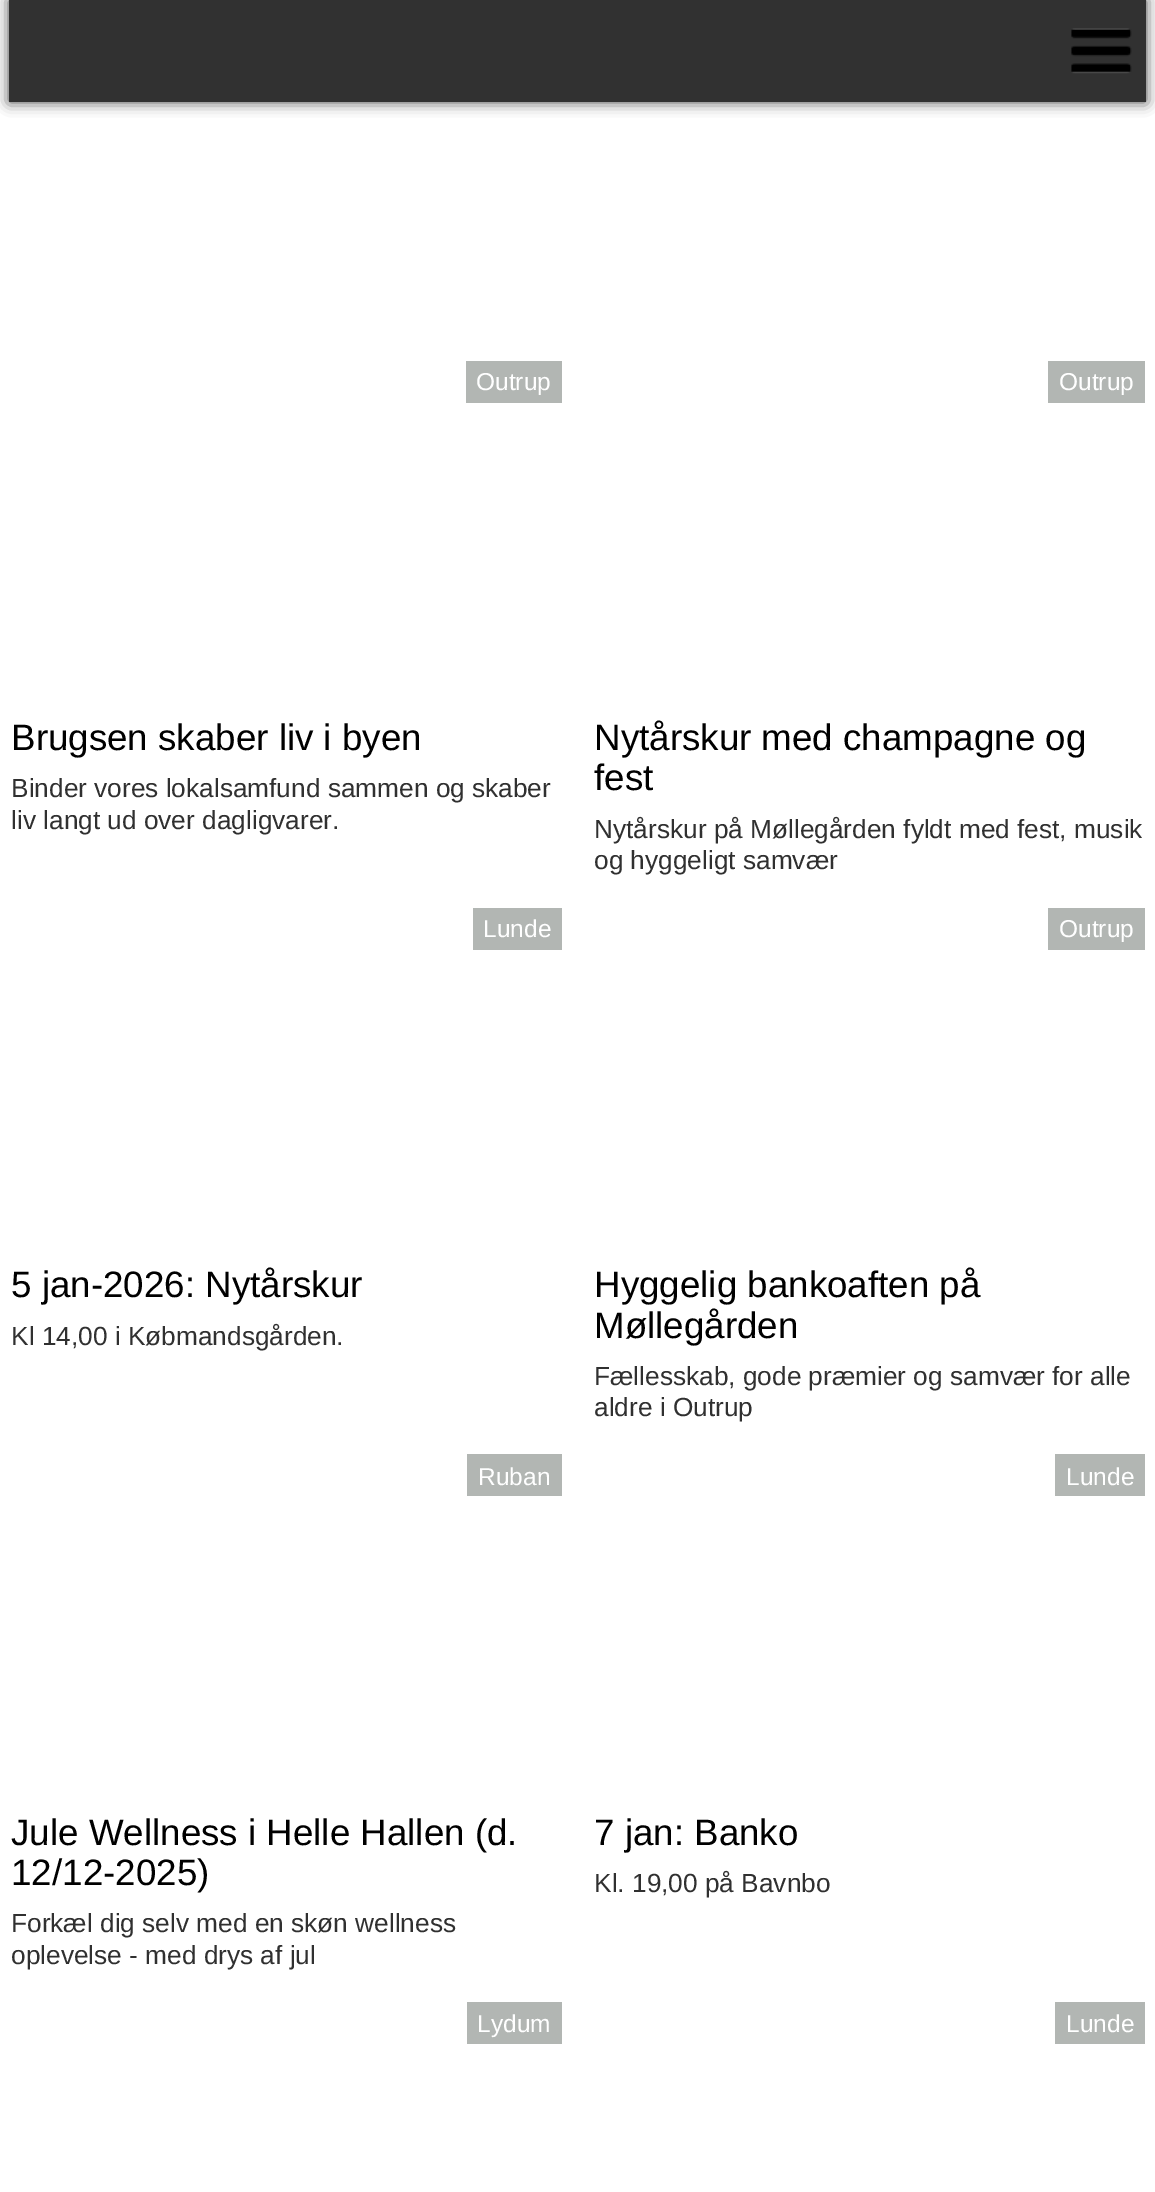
%!PS-Adobe-3.0
%%BoundingBox: 0 0 1155 2192
%%LanguageLevel: 3
%%Pages: 1
%%EndComments
%%BeginProlog
/setink { 3 { 255 div 3 1 roll } repeat setrgbcolor } def
/usefont { [ exch dup neg 0 0 3 -1 roll 0 0 ] selectfont } def
/drawtext { setink usefont moveto show } def
/fillbox { setink rectfill } def
/setalpha { dup .setfillconstantalpha .setstrokeconstantalpha } def
/rrect { 5 dict begin { /r /h /w /y /x } { exch def } forall
  x r add y moveto x w add y 2 copy h add r arct x w add y h add x 1 index r arct
  x y h add x y r arct x y 2 copy exch w add exch r arct closepath end } def
/softshadow { 12 dict begin { /a /b /q /h /w /y /x } { exch def } forall gsave /was 0 def
  9 -2 -9 { dup b mul 4 div /e exch def 1 sub .425 mul 2.718 exch exp 1 add a .99 .min exch div /now exch def
    1 1 now sub 1 was sub div sub setalpha /was now def
    w h .min e 2 mul add 0 gt { x e sub y e sub w e 2 mul add h e 2 mul add
      q e add b .6 mul add w h .min 2 div e add .min 0 .max rrect fill } if } for grestore end } def
/drawimage { 5 dict begin { /h /w /y /x /name } { exch def } forall
  gsave x y translate w h scale
  w h 8 [w 0 0 h 0 0] name (r) file false 3 colorimage grestore end } def
%%EndProlog
%%BeginSetup
<< /PageSize [1155 2192] /PageUsesTransparency true >> setpagedevice
%%EndSetup
%%Page: 1 1
0 .pushpdf14devicefilter
0 2192 translate 1 -1 scale
4 setmiterlimit
0 0 1155 2192 255 255 255 fillbox
0 0 0 setink
9 0 1137 102 0 7 0.75 softshadow
9 0 1137 102 49 49 49 fillbox
(assets/img1.rgb) 1071 28 61 46 drawimage
466 361 96 42 178 182 179 fillbox
(Outrup) 476 390 /LiberationSans-Regular 24.5 255 255 255 drawtext
(Brugsen skaber liv i byen) 11 750 /LiberationSans-Regular 36.75 0 0 0 drawtext
(Binder vores lokalsamfund sammen og skaber) 11 797 /LiberationSans-Regular 26.25 48 48 48 drawtext
(liv langt ud over dagligvarer.) 11 829 /LiberationSans-Regular 26.25 48 48 48 drawtext
1048 361 97 42 178 182 179 fillbox
(Outrup) 1059 390 /LiberationSans-Regular 24.5 255 255 255 drawtext
(Nytårskur med champagne og) 594 750 /LiberationSans-Regular 36.75 0 0 0 drawtext
(fest) 594 790 /LiberationSans-Regular 36.75 0 0 0 drawtext
(Nytårskur på Møllegården fyldt med fest, musik) 594 838 /LiberationSans-Regular 26.25 48 48 48 drawtext
(og hyggeligt samvær) 594 869 /LiberationSans-Regular 26.25 48 48 48 drawtext
473 908 89 42 178 182 179 fillbox
(Lunde) 483 937 /LiberationSans-Regular 24.5 255 255 255 drawtext
(5 jan-2026: Nytårskur) 11 1297 /LiberationSans-Regular 36.75 0 0 0 drawtext
(Kl 14,00 i Købmandsgården.) 11 1345 /LiberationSans-Regular 26.25 48 48 48 drawtext
1048 908 97 42 178 182 179 fillbox
(Outrup) 1059 937 /LiberationSans-Regular 24.5 255 255 255 drawtext
(Hyggelig bankoaften på) 594 1297 /LiberationSans-Regular 36.75 0 0 0 drawtext
(Møllegården) 594 1338 /LiberationSans-Regular 36.75 0 0 0 drawtext
(Fællesskab, gode præmier og samvær for alle) 594 1385 /LiberationSans-Regular 26.25 48 48 48 drawtext
(aldre i Outrup) 594 1416 /LiberationSans-Regular 26.25 48 48 48 drawtext
467 1454 95 42 178 182 179 fillbox
(Ruban) 478 1485 /LiberationSans-Regular 24.5 255 255 255 drawtext
(Jule Wellness i Helle Hallen \(d.) 11 1845 /LiberationSans-Regular 36.75 0 0 0 drawtext
(12/12-2025\)) 11 1885 /LiberationSans-Regular 36.75 0 0 0 drawtext
(Forkæl dig selv med en skøn wellness) 11 1932 /LiberationSans-Regular 26.25 48 48 48 drawtext
(oplevelse - med drys af jul) 11 1964 /LiberationSans-Regular 26.25 48 48 48 drawtext
1055 1454 90 42 178 182 179 fillbox
(Lunde) 1066 1485 /LiberationSans-Regular 24.5 255 255 255 drawtext
(7 jan: Banko) 594 1845 /LiberationSans-Regular 36.75 0 0 0 drawtext
(Kl. 19,00 på Bavnbo) 594 1892 /LiberationSans-Regular 26.25 48 48 48 drawtext
467 2002 95 42 178 182 179 fillbox
(Lydum) 477 2032 /LiberationSans-Regular 24.5 255 255 255 drawtext
1055 2002 90 42 178 182 179 fillbox
(Lunde) 1066 2032 /LiberationSans-Regular 24.5 255 255 255 drawtext
.poppdf14devicefilter showpage
%%EOF
